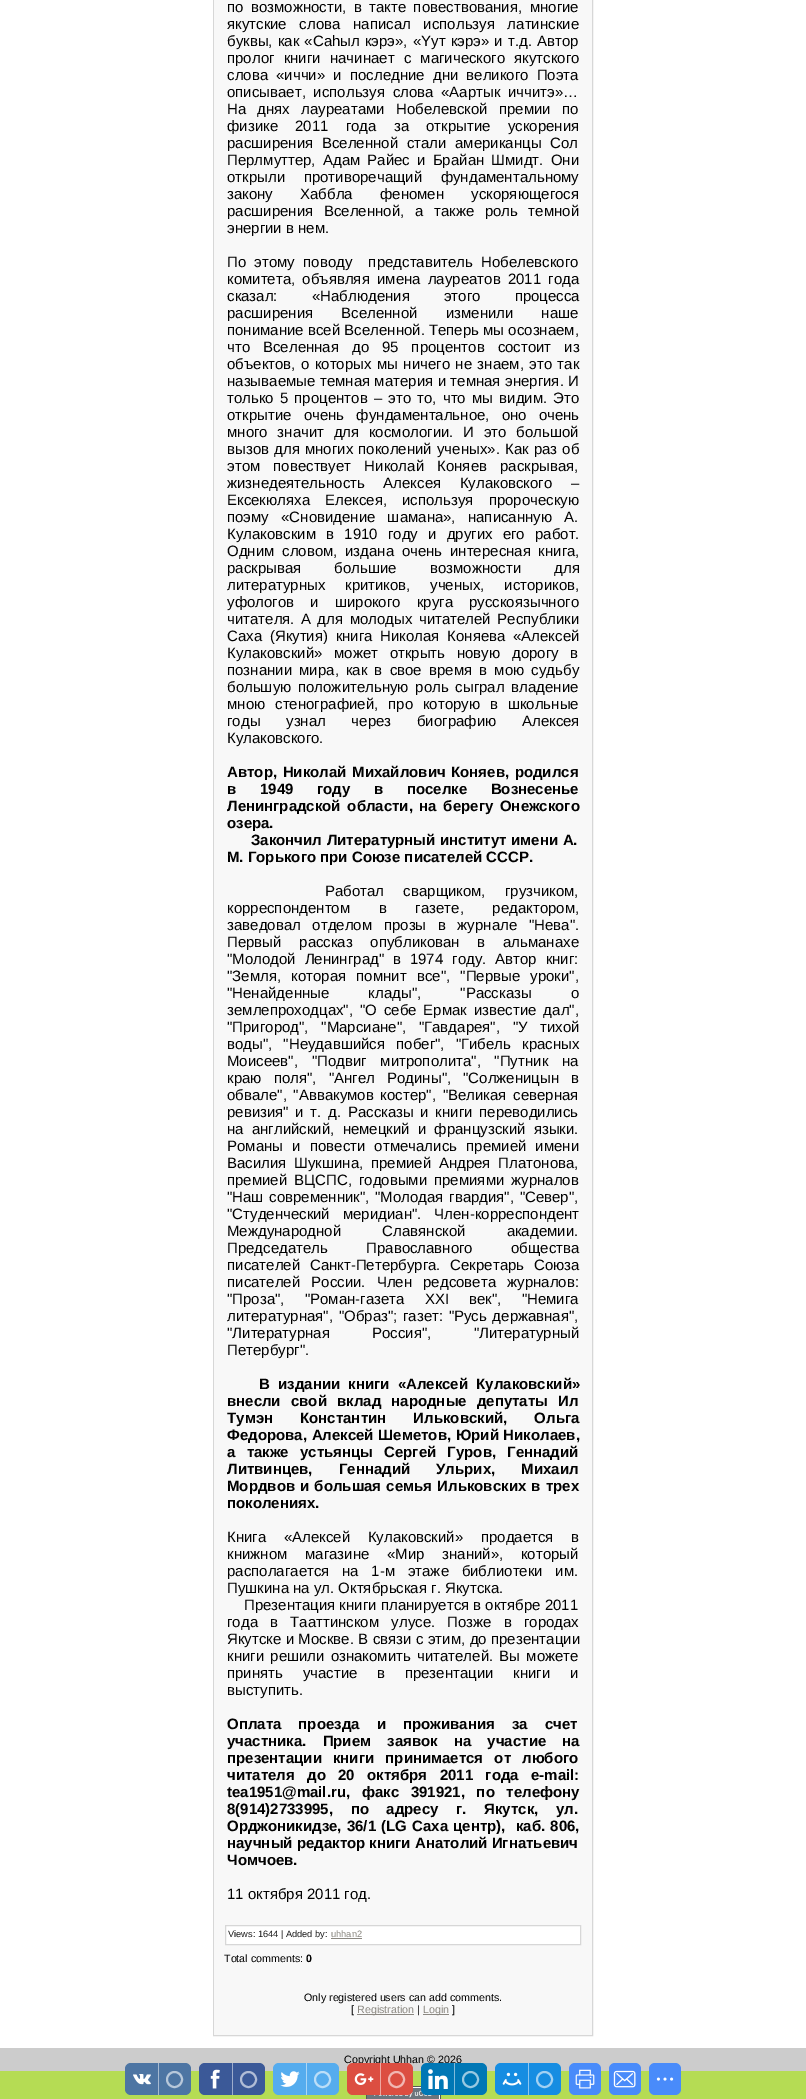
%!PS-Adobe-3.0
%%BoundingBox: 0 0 806 2099
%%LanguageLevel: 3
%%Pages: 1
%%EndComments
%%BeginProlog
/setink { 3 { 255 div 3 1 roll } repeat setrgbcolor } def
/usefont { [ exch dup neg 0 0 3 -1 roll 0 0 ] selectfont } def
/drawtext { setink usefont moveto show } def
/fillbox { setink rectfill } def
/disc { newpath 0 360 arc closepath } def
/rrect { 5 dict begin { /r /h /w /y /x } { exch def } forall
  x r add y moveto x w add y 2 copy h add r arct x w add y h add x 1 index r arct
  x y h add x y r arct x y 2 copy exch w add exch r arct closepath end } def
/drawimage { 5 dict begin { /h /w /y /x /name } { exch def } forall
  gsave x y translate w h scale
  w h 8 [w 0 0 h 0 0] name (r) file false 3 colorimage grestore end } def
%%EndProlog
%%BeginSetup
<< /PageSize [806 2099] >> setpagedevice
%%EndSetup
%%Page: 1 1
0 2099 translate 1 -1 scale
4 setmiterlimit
0 0 806 2099 255 255 255 fillbox
215 215 215 setink
213.5 -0.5 379 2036 rectstroke
214 0 378 2035 248 248 248 fillbox
/LiberationSans-Regular 15 usefont
0 0 0 setink
227 12 moveto 3.25 0 32 (по возможности, в такте повествования, многие) widthshow
227 29 moveto 8.5 0 32 (якутские слова написал используя латинские) widthshow
227 46 moveto 1 0 32 (буквы, как «Саhыл кэрэ», «Yyт кэрэ» и т.д. Автор) widthshow
227 63 moveto 5 0 32 (пролог книги начинает с магического якутского) widthshow
227 80 moveto 4 0 32 (слова «иччи» и последние дни великого Поэта) widthshow
227 97 moveto 3.5 0 32 (описывает, используя слова «Аартык иччитэ»…) widthshow
227 114 moveto 7 0 32 (На днях лауреатами Нобелевской премии по) widthshow
227 131 moveto 13 0 32 (физике 2011 года за открытие ускорения) widthshow
227 148 moveto 4.5 0 32 (расширения Вселенной стали американцы Сол) widthshow
227 165 moveto 3 0 32 (Перлмуттер, Адам Райес и Брайан Шмидт. Они) widthshow
227 182 moveto 14.5 0 32 (открыли противоречащий фундаментальному) widthshow
227 199 moveto 23 0 32 (закону Хаббла феномен ускоряющегося) widthshow
227 216 moveto 6.5 0 32 (расширения Вселенной, а также роль темной) widthshow
(энергии в нем.) 227 233 /LiberationSans-Regular 15 0 0 0 drawtext
227 267 moveto 4 0 32 (По этому поводу  представитель Нобелевского) widthshow
227 284 moveto 3 0 32 (комитета, объявляя имена лауреатов 2011 года) widthshow
227 301 moveto 30 0 32 (сказал: «Наблюдения этого процесса) widthshow
227 318 moveto 24 0 32 (расширения Вселенной изменили наше) widthshow
(понимание всей Вселенной. Теперь мы осознаем,) 227 335 /LiberationSans-Regular 15 0 0 0 drawtext
227 352 moveto 8.75 0 32 (что Вселенная до 95 процентов состоит из) widthshow
227 369 moveto 1.25 0 32 (объектов, о которых мы ничего не знаем, это так) widthshow
227 386 moveto 0.25 0 32 (называемые темная материя и темная энергия. И) widthshow
227 403 moveto 2 0 32 (только 5 процентов – это то, что мы видим. Это) widthshow
227 420 moveto 8 0 32 (открытие очень фундаментальное, оно очень) widthshow
227 437 moveto 5.5 0 32 (много значит для космологии. И это большой) widthshow
227 454 moveto 1 0 32 (вызов для многих поколений ученых». Как раз об) widthshow
227 471 moveto 9 0 32 (этом повествует Николай Коняев раскрывая,) widthshow
227 488 moveto 14.5 0 32 (жизнедеятельность Алексея Кулаковского –) widthshow
227 505 moveto 11 0 32 (Ексекюляха Елексея, используя пророческую) widthshow
227 522 moveto 8 0 32 (поэму «Сновидение шамана», написанную А.) widthshow
227 539 moveto 6 0 32 (Кулаковским в 1910 году и других его работ.) widthshow
227 556 moveto 3.5 0 32 (Одним словом, издана очень интересная книга,) widthshow
227 573 moveto 29 0 32 (раскрывая большие возможности для) widthshow
227 590 moveto 15.5 0 32 (литературных критиков, ученых, историков,) widthshow
227 607 moveto 12 0 32 (уфологов и широкого круга русскоязычного) widthshow
227 624 moveto 2.25 0 32 (читателя. А для молодых читателей Республики) widthshow
227 641 moveto 3.5 0 32 (Саха \(Якутия\) книга Николая Коняева «Алексей) widthshow
227 658 moveto 7.5 0 32 (Кулаковский» может открыть новую дорогу в) widthshow
227 675 moveto 3 0 32 (познании мира, как в свое время в мою судьбу) widthshow
227 692 moveto 2.5 0 32 (большую положительную роль сыграл владение) widthshow
227 709 moveto 5.75 0 32 (мною стенографией, про которую в школьные) widthshow
227 726 moveto 21.5 0 32 (годы узнал через биографию Алексея) widthshow
(Кулаковского.) 227 743 /LiberationSans-Regular 15 0 0 0 drawtext
/LiberationSans-Bold 15 usefont
227 777 moveto 1.5 0 32 (Автор, Николай Михайлович Коняев, родился) widthshow
227 794 moveto 19.5 0 32 (в 1949 году в поселке Вознесенье) widthshow
227 811 moveto 2.5 0 32 (Ленинградской области, на берегу Онежского) widthshow
(озера.) 227 828 /LiberationSans-Bold 15 0 0 0 drawtext
251 845 moveto 0.5 0 32 (Закончил Литературный институт имени А.) widthshow
(М. Горького при Союзе писателей СССР.) 227 862 /LiberationSans-Bold 15 0 0 0 drawtext
/LiberationSans-Regular 15 usefont
325 896 moveto 15 0 32 (Работал сварщиком, грузчиком,) widthshow
227 913 moveto 24.5 0 32 (корреспондентом в газете, редактором,) widthshow
227 930 moveto 7.5 0 32 (заведовал отделом прозы в журнале "Нева".) widthshow
227 947 moveto 13.5 0 32 (Первый рассказ опубликован в альманахе) widthshow
227 964 moveto 4.75 0 32 ("Молодой Ленинград" в 1974 году. Автор книг:) widthshow
227 981 moveto 6 0 32 ("Земля, которая помнит все", "Первые уроки",) widthshow
227 998 moveto 35 0 32 ("Ненайденные клады", "Рассказы о) widthshow
227 1015 moveto 2.75 0 32 (землепроходцах", "О себе Ермак известие дал",) widthshow
227 1032 moveto 8.5 0 32 ("Пригород", "Марсиане", "Гавдарея", "У тихой) widthshow
227 1049 moveto 7 0 32 (воды", "Неудавшийся побег", "Гибель красных) widthshow
227 1066 moveto 9.5 0 32 (Моисеев", "Подвиг митрополита", "Путник на) widthshow
227 1083 moveto 8 0 32 (краю поля", "Ангел Родины", "Солженицын в) widthshow
227 1100 moveto 2.5 0 32 (обвале", "Аввакумов костер", "Великая северная) widthshow
227 1117 moveto 2.5 0 32 (ревизия" и т. д. Рассказы и книги переводились) widthshow
227 1134 moveto 4 0 32 (на английский, немецкий и французский языки.) widthshow
227 1151 moveto 5 0 32 (Романы и повести отмечались премией имени) widthshow
227 1168 moveto 3.5 0 32 (Василия Шукшина, премией Андрея Платонова,) widthshow
227 1185 moveto 2.75 0 32 (премией ВЦСПС, годовыми премиями журналов) widthshow
227 1202 moveto 1.5 0 32 ("Наш современник", "Молодая гвардия", "Север",) widthshow
227 1219 moveto 8.75 0 32 ("Студенческий меридиан". Член-корреспондент) widthshow
227 1236 moveto 37 0 32 (Международной Славянской академии.) widthshow
227 1253 moveto 34 0 32 (Председатель Православного общества) widthshow
227 1270 moveto 5.5 0 32 (писателей Санкт-Петербурга. Секретарь Союза) widthshow
227 1287 moveto 7 0 32 (писателей России. Член редсовета журналов:) widthshow
227 1304 moveto 16 0 32 ("Проза", "Роман-газета XXI век", "Немига) widthshow
227 1321 moveto 1.5 0 32 (литературная", "Образ"; газет: "Русь державная",) widthshow
227 1338 moveto 38 0 32 ("Литературная Россия", "Литературный) widthshow
(Петербург".) 227 1355 /LiberationSans-Regular 15 0 0 0 drawtext
/LiberationSans-Bold 15 usefont
259 1389 moveto 4 0 32 (В издании книги «Алексей Кулаковский») widthshow
227 1406 moveto 6 0 32 (внесли свой вклад народные депутаты Ил) widthshow
227 1423 moveto 23 0 32 (Тумэн Константин Ильковский, Ольга) widthshow
227 1440 moveto 0.5 0 32 (Федорова, Алексей Шеметов, Юрий Николаев,) widthshow
227 1457 moveto 7 0 32 (а также устьянцы Сергей Гуров, Геннадий) widthshow
227 1474 moveto 22 0 32 (Литвинцев, Геннадий Ульрих, Михаил) widthshow
227 1491 moveto 1 0 32 (Мордвов и большая семья Ильковских в трех) widthshow
(поколениях.) 227 1508 /LiberationSans-Bold 15 0 0 0 drawtext
/LiberationSans-Regular 15 usefont
227 1542 moveto 13.5 0 32 (Книга «Алексей Кулаковский» продается в) widthshow
227 1559 moveto 13.5 0 32 (книжном магазине «Мир знаний», который) widthshow
227 1576 moveto 8.5 0 32 (располагается на 1-м этаже библиотеки им.) widthshow
(Пушкина на ул. Октябрьская г. Якутска.) 227 1593 /LiberationSans-Regular 15 0 0 0 drawtext
(Презентация книги планируется в октябре 2011) 244 1610 /LiberationSans-Regular 15 0 0 0 drawtext
227 1627 moveto 8 0 32 (года в Тааттинском улусе. Позже в городах) widthshow
227 1644 moveto 0.25 0 32 (Якутске и Москве. В связи с этим, до презентации) widthshow
227 1661 moveto 2 0 32 (книги решили ознакомить читателей. Вы можете) widthshow
227 1678 moveto 15.5 0 32 (принять участие в презентации книги и) widthshow
(выступить.) 227 1695 /LiberationSans-Regular 15 0 0 0 drawtext
/LiberationSans-Bold 15 usefont
227 1729 moveto 13 0 32 (Оплата проезда и проживания за счет) widthshow
227 1746 moveto 12 0 32 (участника. Прием заявок на участие на) widthshow
227 1763 moveto 7 0 32 (презентации книги принимается от любого) widthshow
227 1780 moveto 8.25 0 32 (читателя до 20 октября 2011 года e-mail:) widthshow
227 1797 moveto 7.5 0 32 (tea1951@mail.ru, факс 391921, по телефону) widthshow
227 1814 moveto 13.5 0 32 (8\(914\)2733995, по адресу г. Якутск, ул.) widthshow
227 1831 moveto 1 0 32 (Орджоникидзе, 36/1 \(LG Саха центр\),  каб. 806,) widthshow
(научный редактор книги Анатолий Игнатьевич) 227 1848 /LiberationSans-Bold 15 0 0 0 drawtext
(Чомчоев.) 227 1865 /LiberationSans-Bold 15 0 0 0 drawtext
(11 октября 2011 год.) 227 1899 /LiberationSans-Regular 15 0 0 0 drawtext
255 255 255 setink
225.5 1925.5 moveto 580.5 1925.5 lineto 580.5 1944.5 lineto 225.5 1944.5 lineto closepath gsave fill grestore
215 215 215 setink
stroke
(Views: 1644 | Added by:) 228 1937 /LiberationSans-Regular 9.25 26 26 26 drawtext
(uhhan2) 331 1937 /LiberationSans-Regular 9.25 139 136 129 drawtext
331 1938 31 1 139 136 129 fillbox
(Total comments:) 224 1962 /LiberationSans-Regular 10.7 0 0 0 drawtext
(0) 306 1962 /LiberationSans-Bold 10.7 0 0 0 drawtext
(Only registered users can add comments.) 304 2001 /LiberationSans-Regular 10.7 0 0 0 drawtext
([) 351 2013 /LiberationSans-Regular 10.7 0 0 0 drawtext
357 2014 57 1 139 136 129 fillbox
(Registration) 357 2013 /LiberationSans-Regular 10.7 139 136 129 drawtext
(|) 417 2013 /LiberationSans-Regular 10.7 0 0 0 drawtext
423 2014 26 1 139 136 129 fillbox
(Login) 423 2013 /LiberationSans-Regular 10.7 139 136 129 drawtext
(]) 452 2013 /LiberationSans-Regular 10.7 0 0 0 drawtext
0 2048 806 23 204 204 204 fillbox
(Copyright Uhhan © 2026) 344 2063 /LiberationSans-Regular 10.7 0 0 0 drawtext
0 2071 806 28 181 220 84 fillbox
(assets/img1.rgb) 366 2086 75 13 drawimage
77 117 163 setink
125 2063 66 32 6 rrect fill
(assets/img2.rgb) 133 2074 18 11 drawimage
158 2063 1 32 166 186 209 fillbox
184 200 218 setink
2 setlinewidth
174.5 2079.5 7.5 disc stroke
59 89 152 setink
199 2063 66 32 6 rrect fill
(assets/img3.rgb) 210 2069 10 20 drawimage
232 2063 1 32 157 172 204 fillbox
177 189 214 setink
248.5 2079.5 7.5 disc stroke
85 172 238 setink
273 2063 66 32 6 rrect fill
(assets/img4.rgb) 280 2071 20 16 drawimage
306 2063 1 32 170 214 247 fillbox
187 222 248 setink
322.5 2079.5 7.5 disc stroke
220 78 65 setink
347 2063 66 32 6 rrect fill
(assets/img5.rgb) 354 2073 20 12 drawimage
380 2063 1 32 238 167 160 fillbox
241 184 179 setink
396.5 2079.5 7.5 disc stroke
0 119 181 setink
421 2063 66 32 6 rrect fill
(assets/img6.rgb) 428 2069 20 20 drawimage
454 2063 1 32 128 187 218 fillbox
153 201 225 setink
470.5 2079.5 7.5 disc stroke
22 141 226 setink
495 2063 66 32 6 rrect fill
(assets/img7.rgb) 502 2072 20 14 drawimage
528 2063 1 32 139 198 241 fillbox
162 209 243 setink
544.5 2079.5 7.5 disc stroke
73 139 250 setink
569 2063 32 32 6 rrect fill
(assets/img8.rgb) 575 2069 20 20 drawimage
609 2063 32 32 6 rrect fill
(assets/img9.rgb) 613 2070 23 18 drawimage
649 2063 32 32 6 rrect fill
(assets/img10.rgb) 656 2077 18 4 drawimage
showpage
%%EOF
